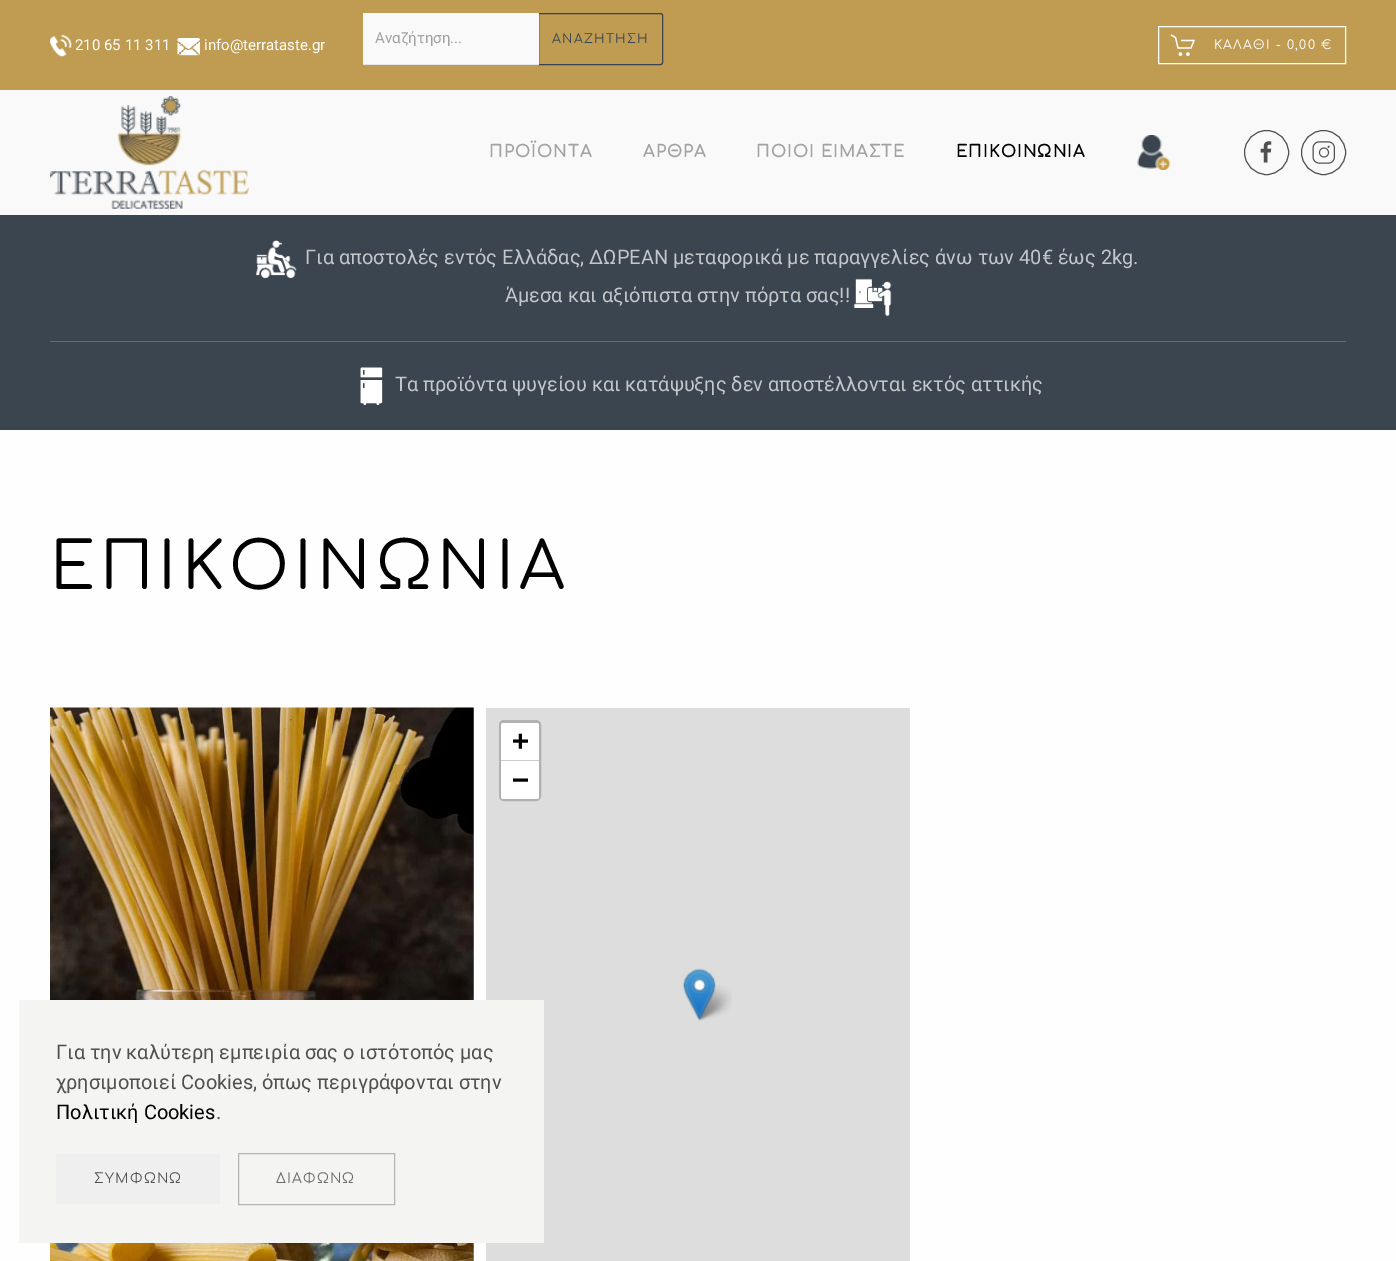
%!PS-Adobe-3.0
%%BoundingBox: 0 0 1396 1261
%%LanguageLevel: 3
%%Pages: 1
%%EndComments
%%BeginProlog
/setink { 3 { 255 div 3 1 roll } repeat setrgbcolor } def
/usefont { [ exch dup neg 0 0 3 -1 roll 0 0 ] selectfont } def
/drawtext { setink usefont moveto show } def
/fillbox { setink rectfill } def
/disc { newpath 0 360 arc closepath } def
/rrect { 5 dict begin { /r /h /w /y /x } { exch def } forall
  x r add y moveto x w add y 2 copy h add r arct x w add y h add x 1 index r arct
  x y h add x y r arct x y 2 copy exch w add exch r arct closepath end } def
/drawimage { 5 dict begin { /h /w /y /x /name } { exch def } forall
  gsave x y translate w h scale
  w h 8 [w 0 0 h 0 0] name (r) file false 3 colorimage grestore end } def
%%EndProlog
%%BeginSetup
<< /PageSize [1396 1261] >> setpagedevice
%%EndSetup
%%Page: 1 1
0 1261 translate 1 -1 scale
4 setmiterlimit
0 0 1396 1261 249 249 249 fillbox
0 0 1396 90 191 156 82 fillbox
(assets/img1.rgb) 50 35 22 22 drawimage
(210 65 11 311) 75 50 /Roboto-Regular 15 255 255 255 drawtext
(assets/img2.rgb) 177 38 23 18 drawimage
(info@terrataste.gr) 204 50 /Roboto-Regular 15 255 255 255 drawtext
58 69 79 setink
538.5 13.5 moveto 660.5 13.5 lineto 661.5 13.5 662.5 14.5 662.5 15.5 curveto 662.5 62.5 lineto 662.5 63.5 661.5 64.5 660.5 64.5 curveto 538.5 64.5 lineto closepath stroke
363 13 176 51 249 249 249 fillbox
363 64 176 1 229 229 229 fillbox
(Αναζήτηση...) 375 43 /Roboto-Regular 15 162 162 162 drawtext
/Comfortaa-Regular 12.5 usefont
58 69 79 setink
552 43 moveto 1.25 0 (ΑΝΑΖΗΤΗΣΗ) ashow
255 255 255 setink
1158.5 26.5 187 37 rectstroke
1.2 setlinewidth
1171 35 moveto 1175.5 37.5 lineto 1178 48 lineto 1191 48 lineto 1194 40.5 lineto 1181 40.5 lineto stroke
1180.4 54.1 1.7 disc fill
1187.9 54.1 1.7 disc fill
1214 49 moveto 1.25 0 (ΚΑΛΑΘΙ - 0,00 €) ashow
(assets/img3.rgb) 50 96 199 113 drawimage
/Comfortaa-Bold 16.25 usefont
162 162 162 setink
489 157 moveto 1.25 0 (ΠΡΟΪΟΝΤΑ) ashow
643 157 moveto 1.25 0 (ΑΡΘΡΑ) ashow
756 157 moveto 1.25 0 (ΠΟΙΟΙ ΕΙΜΑΣΤΕ) ashow
1 1 1 setink
956 157 moveto 1.25 0 (ΕΠΙΚΟΙΝΩΝΙΑ) ashow
(assets/img4.rgb) 1137 135 34 35 drawimage
82 79 79 setink
1 setlinewidth
1266.5 152.5 22 disc stroke
(assets/img5.rgb) 1260 141 12 22 drawimage
1323.5 152.5 22 disc stroke
(assets/img6.rgb) 1312 141 23 23 drawimage
0 215 1396 215 58 69 79 fillbox
(assets/img7.rgb) 256 240 41 39 drawimage
(Για αποστολές εντός Ελλάδας, ΔΩΡΕΑΝ μεταφορικά με παραγγελίες άνω των 40€ έως 2kg.) 305 264 /Roboto-Regular 20 196 199 202 drawtext
(Άμεσα και αξιόπιστα στην πόρτα σας!!) 505 302 /Roboto-Regular 20 196 199 202 drawtext
(assets/img8.rgb) 853 278 39 39 drawimage
50 341 1296 1 97 106 114 fillbox
(assets/img9.rgb) 360 367 23 38 drawimage
(Τα προϊόντα ψυγείου και κατάψυξης δεν αποστέλλονται εκτός αττικής) 395 391 /Roboto-Regular 20 196 199 202 drawtext
0 430 1396 831 254 254 254 fillbox
/Comfortaa-Regular 65 usefont
1 1 1 setink
50 589 moveto 5 0 (ΕΠΙΚΟΙΝΩΝΙΑ) ashow
(assets/img10.rgb) 50 707 424 554 drawimage
486 708 424 553 221 221 221 fillbox
177 177 177 setink
3 setlinewidth
500.5 721.5 39 78 3.5 rrect stroke
255 255 255 setink
503.5 723 moveto 536.5 723 lineto 538 723 539 724 539 725.5 curveto 539 761 lineto 501 761 lineto 501 725.5 lineto 501 724 502 723 503.5 723 curveto closepath fill
501 760 38 1 204 204 204 fillbox
(+) 512 750 /DejaVuSansMono-Bold 28 1 1 1 drawtext
255 255 255 setink
501 761 moveto 539 761 lineto 539 796.5 lineto 539 798 538 799 536.5 799 curveto 503.5 799 lineto 502 799 501 798 501 796.5 curveto closepath fill
(−) 512 789 /DejaVuSansMono-Bold 28 1 1 1 drawtext
(assets/img12.rgb) 695 985 37 36 drawimage
(assets/img11.rgb) 683 968 33 53 drawimage
19 1000 525 243 244 244 242 fillbox
(Για την καλύτερη εμπειρία σας ο ιστότοπός μας) 56 1059 /Roboto-Regular 20 82 79 79 drawtext
(χρησιμοποιεί Cookies, όπως περιγράφονται στην) 56 1089 /Roboto-Regular 20 82 79 79 drawtext
(Πολιτική Cookies) 56 1119 /Roboto-Regular 20 1 1 1 drawtext
(.) 216 1119 /Roboto-Regular 20 82 79 79 drawtext
56 1154 164 50 239 239 239 fillbox
/Comfortaa-Regular 13.75 usefont
82 79 79 setink
94 1183 moveto 1.25 0 (ΣΥΜΦΩΝΩ) ashow
181 181 181 setink
1 setlinewidth
238.5 1153.5 156 51 rectstroke
105 105 105 setink
276 1183 moveto 1.25 0 (ΔΙΑΦΩΝΩ) ashow
showpage
%%EOF
